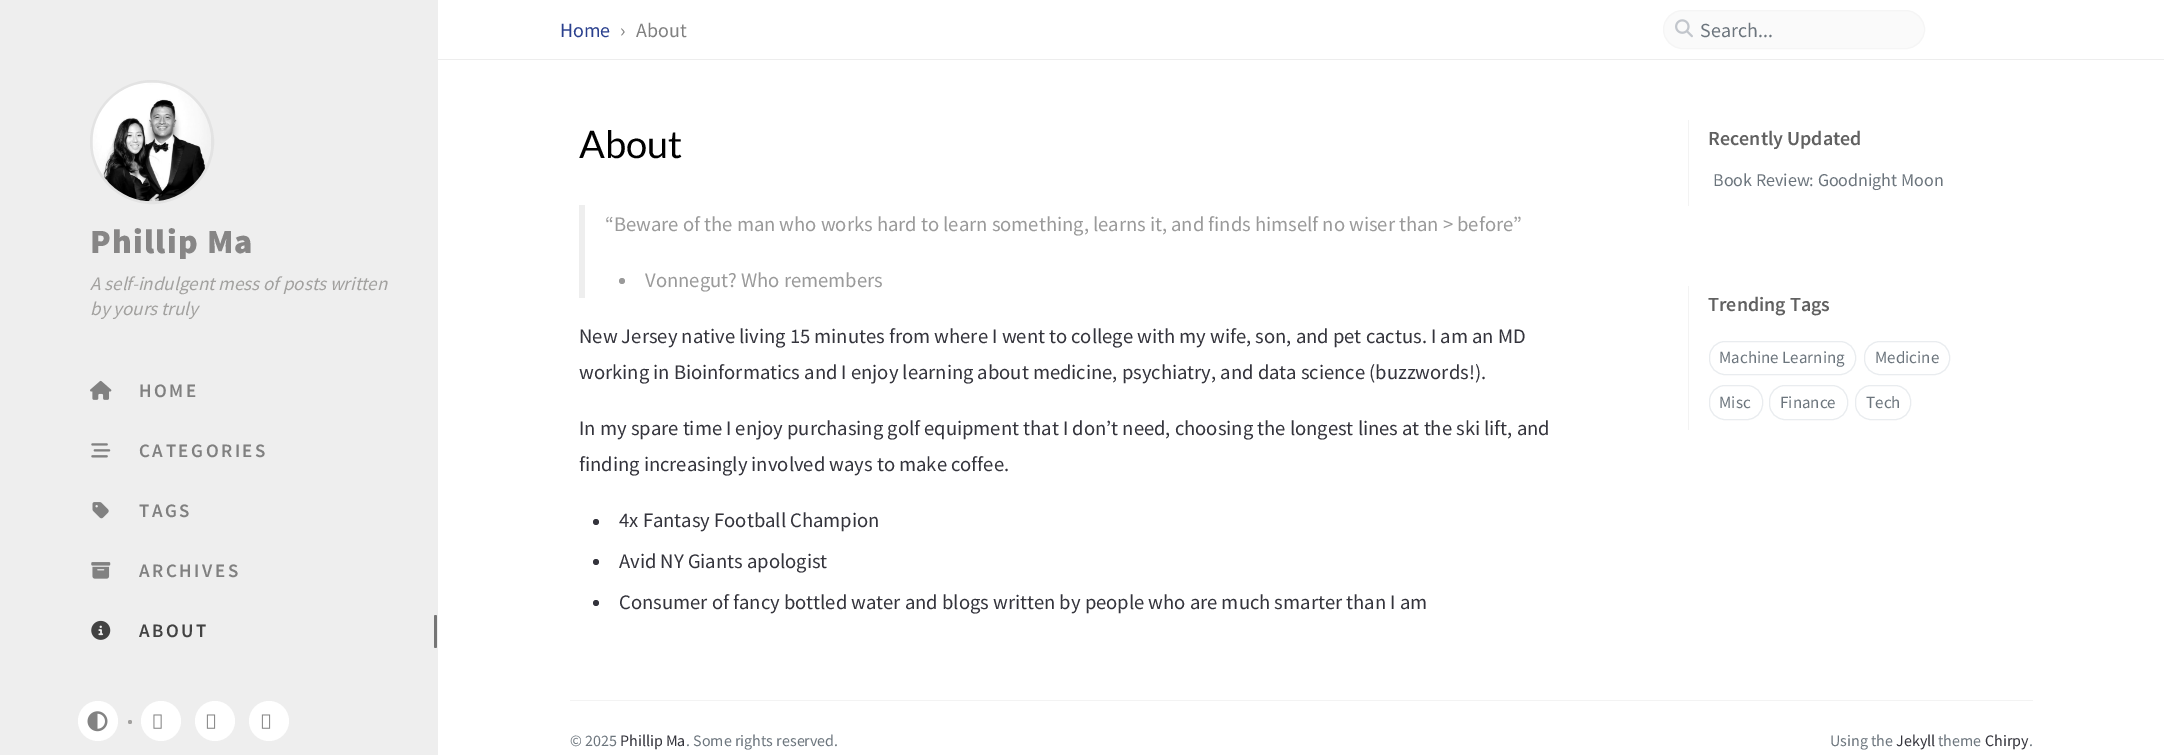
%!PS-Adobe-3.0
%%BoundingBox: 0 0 2164 755
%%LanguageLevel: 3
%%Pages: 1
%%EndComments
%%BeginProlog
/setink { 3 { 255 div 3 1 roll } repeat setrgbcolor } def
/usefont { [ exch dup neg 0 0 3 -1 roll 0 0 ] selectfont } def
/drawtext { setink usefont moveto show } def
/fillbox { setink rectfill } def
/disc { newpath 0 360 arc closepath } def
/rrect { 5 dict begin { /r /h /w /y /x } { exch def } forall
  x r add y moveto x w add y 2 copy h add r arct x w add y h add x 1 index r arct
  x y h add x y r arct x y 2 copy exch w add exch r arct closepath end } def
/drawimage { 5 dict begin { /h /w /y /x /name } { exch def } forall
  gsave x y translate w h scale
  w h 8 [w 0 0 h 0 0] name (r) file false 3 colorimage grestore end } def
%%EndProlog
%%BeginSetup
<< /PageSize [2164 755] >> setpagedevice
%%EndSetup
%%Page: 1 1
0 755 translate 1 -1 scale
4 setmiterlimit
0 0 2164 755 255 255 255 fillbox
438 59 1726 1 237 237 237 fillbox
(Home) 560 37 /SourceSansPro-Regular 20 42 64 142 drawtext
(›) 620 37 /SourceSansPro-Regular 20 128 128 128 drawtext
(About) 636 37 /SourceSansPro-Regular 20 128 128 128 drawtext
250 250 250 setink
1663.5 10.5 261 38 19 rrect gsave fill grestore
245 245 245 setink
stroke
(assets/img1.rgb) 1675 19 18 19 drawimage
(Search...) 1700 37 /SourceSansPro-Regular 20 108 117 125 drawtext
0 0 438 755 238 238 238 fillbox
227 227 227 setink
3 setlinewidth
152 142 60.5 disc stroke
(assets/img2.rgb) 92 82 119 120 drawimage
/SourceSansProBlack-Black 34 usefont
135 134 134 setink
90 253 moveto 1.25 0 (Phillip Ma) ashow
(A self-indulgent mess of posts written) 90 290 /SourceSansPro-Italic 19 162 161 159 drawtext
(by yours truly) 90 315 /SourceSansPro-Italic 19 162 161 159 drawtext
(assets/img3.rgb) 90 380 22 20 drawimage
/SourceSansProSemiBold-SemiBold 19 usefont
128 128 128 setink
139 397 moveto 2.5 0 (HOME) ashow
(assets/img4.rgb) 91 443 20 15 drawimage
139 457 moveto 2.5 0 (CATEGORIES) ashow
(assets/img5.rgb) 92 502 17 17 drawimage
139 517 moveto 2.5 0 (TAGS) ashow
(assets/img6.rgb) 91 562 20 17 drawimage
139 577 moveto 2.5 0 (ARCHIVES) ashow
(assets/img7.rgb) 91 620 20 20 drawimage
66 66 66 setink
139 637 moveto 2.5 0 (ABOUT) ashow
117 117 117 setink
434 615 3 33 1.5 rrect fill
255 255 255 setink
98 721 20 disc fill
(assets/img8.rgb) 87 711 21 21 drawimage
162 161 159 setink
130 722 2 disc fill
255 255 255 setink
161 721 20 disc fill
(assets/img9.rgb) 153 714 9 15 drawimage
215 721 20 disc fill
(assets/img10.rgb) 206 714 10 15 drawimage
269 721 20 disc fill
(assets/img10.rgb) 261 714 10 15 drawimage
(About) 579 158 /Lato-Regular 38 0 0 0 drawtext
579 205 6 93 238 238 238 fillbox
(“Beware of the man who works hard to learn something, learns it, and finds himself no wiser than > before”) 605 231 /SourceSansPro-Regular 20.6 154 154 154 drawtext
622 281 3 disc fill
(Vonnegut? Who remembers) 645 287 /SourceSansPro-Regular 20.6 154 154 154 drawtext
(New Jersey native living 15 minutes from where I went to college with my wife, son, and pet cactus. I am an MD) 579 343 /SourceSansPro-Regular 20.6 52 52 60 drawtext
(working in Bioinformatics and I enjoy learning about medicine, psychiatry, and data science \(buzzwords!\).) 579 379 /SourceSansPro-Regular 20.6 52 52 60 drawtext
(In my spare time I enjoy purchasing golf equipment that I don’t need, choosing the longest lines at the ski lift, and) 579 435 /SourceSansPro-Regular 20.6 52 52 60 drawtext
(finding increasingly involved ways to make coffee.) 579 471 /SourceSansPro-Regular 20.6 52 52 60 drawtext
596 522 3 disc fill
(4x Fantasy Football Champion) 619 527 /SourceSansPro-Regular 20.6 52 52 60 drawtext
596 562 3 disc fill
(Avid NY Giants apologist) 619 568 /SourceSansPro-Regular 20.6 52 52 60 drawtext
596 603 3 disc fill
(Consumer of fancy bottled water and blogs written by people who are much smarter than I am) 619 609 /SourceSansPro-Regular 20.6 52 52 60 drawtext
1688 120 1 86 243 243 243 fillbox
(Recently Updated) 1708 145 /SourceSansProSemiBold-SemiBold 20 97 97 97 drawtext
(Book Review: Goodnight Moon) 1713 186 /SourceSansPro-Regular 18 108 117 125 drawtext
1688 286 1 144 243 243 243 fillbox
(Trending Tags) 1708 311 /SourceSansProSemiBold-SemiBold 20 97 97 97 drawtext
233 236 239 setink
1 setlinewidth
1709.5 341.5 146 33 15.5 rrect stroke
(Machine Learning) 1719 363 /SourceSansPro-Regular 17 108 117 125 drawtext
233 236 239 setink
1864.5 341.5 85 33 15.5 rrect stroke
(Medicine) 1875 363 /SourceSansPro-Regular 17 108 117 125 drawtext
233 236 239 setink
1709.5 385.5 53 34 15.5 rrect stroke
(Misc) 1719 408 /SourceSansPro-Regular 17 108 117 125 drawtext
233 236 239 setink
1769.5 385.5 78 34 15.5 rrect stroke
(Finance) 1780 408 /SourceSansPro-Regular 17 108 117 125 drawtext
233 236 239 setink
1855.5 385.5 55 34 15.5 rrect stroke
(Tech) 1866 408 /SourceSansPro-Regular 17 108 117 125 drawtext
570 700 1463 1 243 243 243 fillbox
(© 2025) 570 746 /SourceSansPro-Regular 16 108 117 125 drawtext
(Phillip Ma) 620 746 /SourceSansPro-Regular 16 52 52 60 drawtext
(. Some rights reserved.) 686 746 /SourceSansPro-Regular 16 108 117 125 drawtext
(Using the) 1830 746 /SourceSansPro-Regular 16 108 117 125 drawtext
(Jekyll) 1896 746 /SourceSansPro-Regular 16 52 52 60 drawtext
(theme) 1938 746 /SourceSansPro-Regular 16 108 117 125 drawtext
(Chirpy) 1985 746 /SourceSansPro-Regular 16 52 52 60 drawtext
(.) 2029 746 /SourceSansPro-Regular 16 108 117 125 drawtext
showpage
%%EOF
